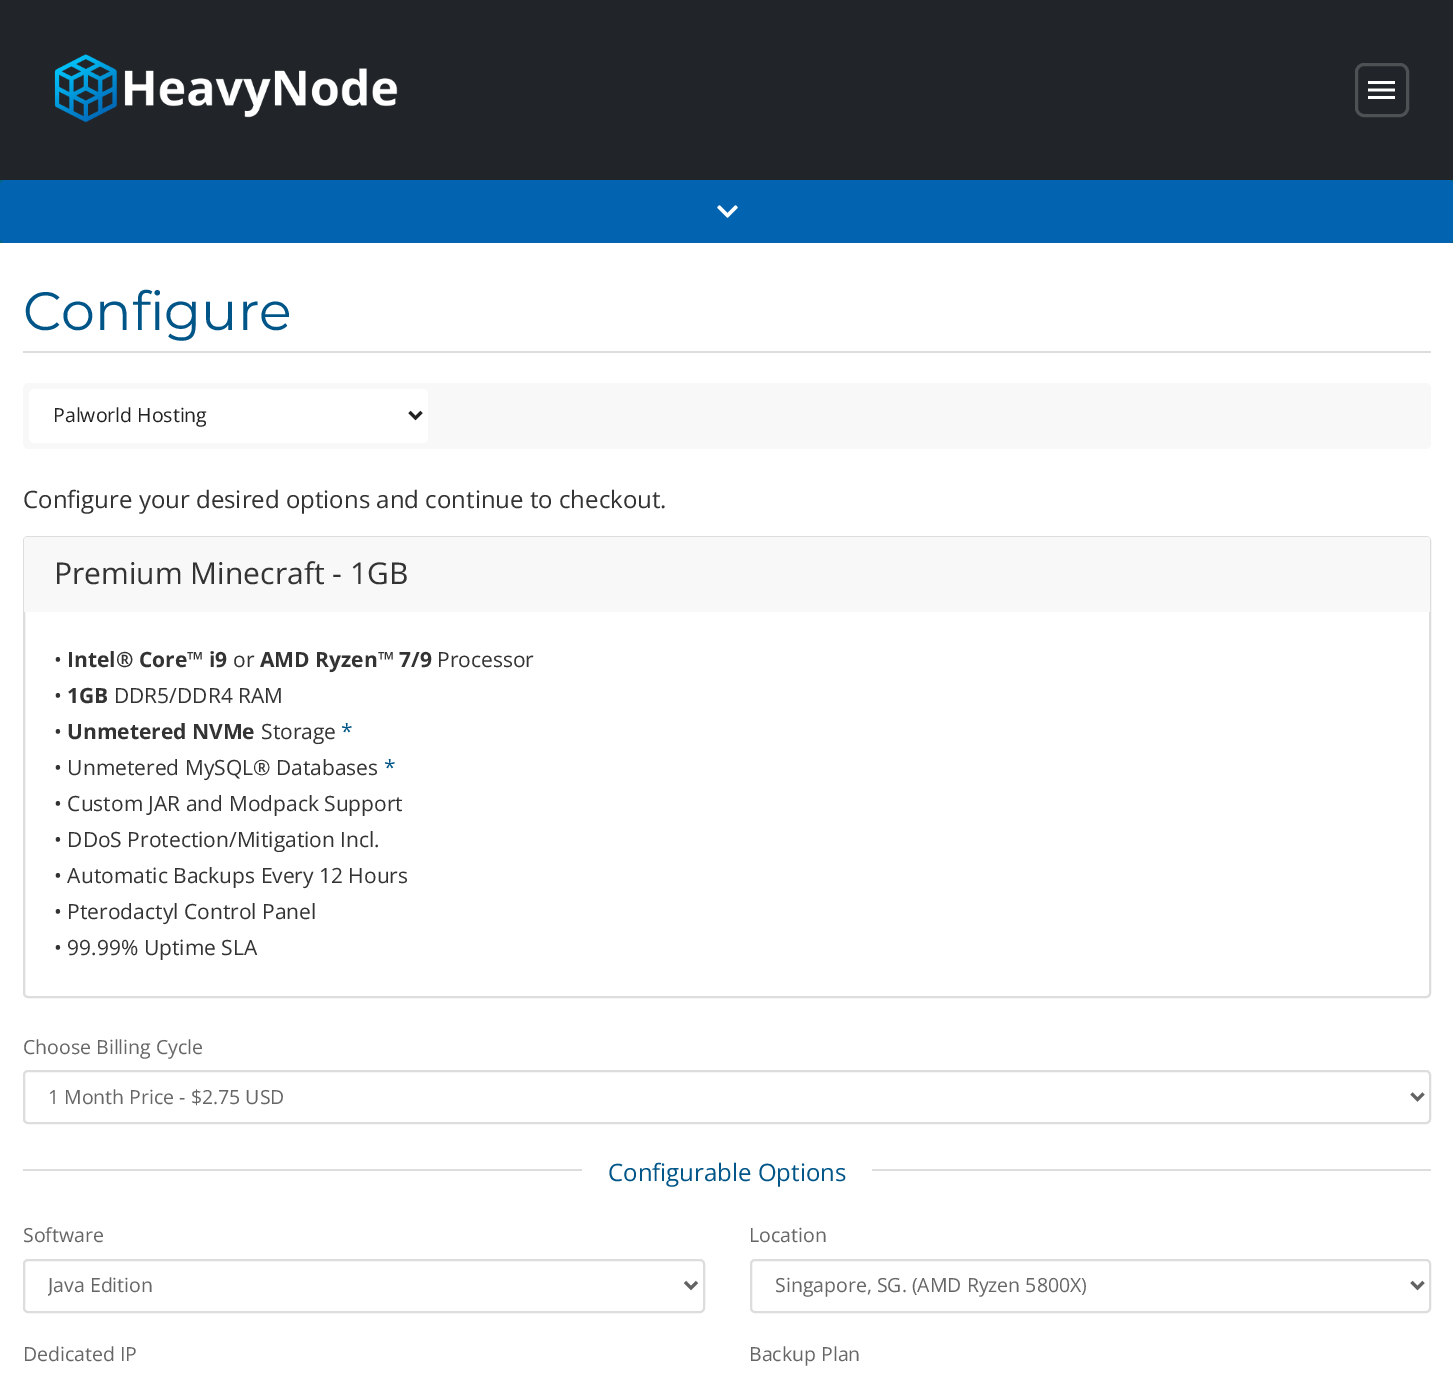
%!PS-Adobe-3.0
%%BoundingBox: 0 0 1453 1377
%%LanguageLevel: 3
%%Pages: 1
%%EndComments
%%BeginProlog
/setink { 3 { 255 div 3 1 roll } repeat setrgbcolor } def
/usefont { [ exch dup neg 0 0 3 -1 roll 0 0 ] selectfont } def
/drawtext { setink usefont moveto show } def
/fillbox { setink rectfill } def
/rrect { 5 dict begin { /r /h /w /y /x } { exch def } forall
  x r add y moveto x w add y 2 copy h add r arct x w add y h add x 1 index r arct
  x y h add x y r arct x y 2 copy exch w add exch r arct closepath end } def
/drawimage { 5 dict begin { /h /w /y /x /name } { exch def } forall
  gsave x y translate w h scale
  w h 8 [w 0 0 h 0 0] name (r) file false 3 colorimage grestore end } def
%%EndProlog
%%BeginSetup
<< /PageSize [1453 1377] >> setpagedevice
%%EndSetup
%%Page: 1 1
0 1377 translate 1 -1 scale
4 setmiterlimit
0 0 1453 1377 33 37 41 fillbox
(assets/img1.rgb) 54 54 344 69 drawimage
77 81 84 setink
3 setlinewidth
1356.5 64.5 51 51 7.5 rrect stroke
(assets/img2.rgb) 1368 81 27 18 drawimage
0 180 1453 63 0 102 135 fillbox
2 100 177 setink
0 180 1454 63 6 rrect fill
(assets/img3.rgb) 717 205 21 13 drawimage
0 243 1453 1134 255 255 255 fillbox
23 351 1408 2 221 221 221 fillbox
(Configure) 23 330 /Montserrat-Regular 54 0 85 136 drawtext
248 248 248 setink
23 383 1408 66 6 rrect fill
255 255 255 setink
29 389 399 54 5 rrect fill
34 34 34 setink
409.5 412 moveto 415.5 418 lineto 421.5 412 lineto stroke
(Palworld Hosting) 53 422 /OpenSans-Regular 19.5 34 34 34 drawtext
(Configure your desired options and continue to checkout.) 23 508 /OpenSans-Regular 24 51 51 51 drawtext
221 221 221 setink
2 setlinewidth
24 537 1406 460 4 rrect stroke
248 248 248 setink
27 537 moveto 1427 537 lineto 1428.5 537 1430 538.5 1430 540 curveto 1430 612 lineto 24 612 lineto 24 540 lineto 24 538.5 25.5 537 27 537 curveto closepath fill
(Premium Minecraft - 1GB) 54 584 /OpenSans-Regular 30 51 51 51 drawtext
(•) 54 667 /OpenSans-Regular 21 51 51 51 drawtext
(Intel® Core™ i9) 67 667 /OpenSans-Bold 21 51 51 51 drawtext
(or) 233 667 /OpenSans-Regular 21 51 51 51 drawtext
(AMD Ryzen™ 7/9) 260 667 /OpenSans-Bold 21 51 51 51 drawtext
(Processor) 437 667 /OpenSans-Regular 21 51 51 51 drawtext
(•) 54 703 /OpenSans-Regular 21 51 51 51 drawtext
(1GB) 67 703 /OpenSans-Bold 21 51 51 51 drawtext
(DDR5/DDR4 RAM) 114 703 /OpenSans-Regular 21 51 51 51 drawtext
(•) 54 739 /OpenSans-Regular 21 51 51 51 drawtext
(Unmetered NVMe) 67 739 /OpenSans-Bold 21 51 51 51 drawtext
(Storage) 261 739 /OpenSans-Regular 21 51 51 51 drawtext
(*) 341 739 /OpenSans-Regular 21 0 85 136 drawtext
(• Unmetered MySQL® Databases) 54 775 /OpenSans-Regular 21 51 51 51 drawtext
(*) 384 775 /OpenSans-Regular 21 0 85 136 drawtext
(• Custom JAR and Modpack Support) 54 811 /OpenSans-Regular 21 51 51 51 drawtext
(• DDoS Protection/Mitigation Incl.) 54 847 /OpenSans-Regular 21 51 51 51 drawtext
(• Automatic Backups Every 12 Hours) 54 883 /OpenSans-Regular 21 51 51 51 drawtext
(• Pterodactyl Control Panel) 54 919 /OpenSans-Regular 21 51 51 51 drawtext
(• 99.99% Uptime SLA) 54 955 /OpenSans-Regular 21 51 51 51 drawtext
(Choose Billing Cycle) 23 1054 /OpenSans-Regular 19.5 102 102 102 drawtext
221 221 221 setink
24 1071 1406 52 4 rrect stroke
98 98 98 setink
3 setlinewidth
1411.5 1093.5 moveto 1417.5 1099.5 lineto 1423.5 1093.5 lineto stroke
(1 Month Price - $2.75 USD) 48 1104 /OpenSans-Regular 19.5 102 102 102 drawtext
23 1169 1408 2 221 221 221 fillbox
582 1169 290 2 255 255 255 fillbox
(Configurable Options) 608 1181 /OpenSans-Regular 24 0 85 136 drawtext
(Software) 23 1242 /OpenSans-Regular 19.5 102 102 102 drawtext
221 221 221 setink
2 setlinewidth
24 1260 680 52 4 rrect stroke
98 98 98 setink
3 setlinewidth
685 1282 moveto 691 1288 lineto 697 1282 lineto stroke
gsave
48 1271 614 30 rectclip
(Java Edition) 48 1292 /OpenSans-Regular 19.5 102 102 102 drawtext
grestore
(Location) 749 1242 /OpenSans-Regular 19.5 102 102 102 drawtext
221 221 221 setink
2 setlinewidth
751 1260 679 52 4 rrect stroke
98 98 98 setink
3 setlinewidth
1411.5 1282 moveto 1417.5 1288 lineto 1423.5 1282 lineto stroke
(Singapore, SG. \(AMD Ryzen 5800X\)) 775 1292 /OpenSans-Regular 19.5 102 102 102 drawtext
(Dedicated IP) 23 1361 /OpenSans-Regular 19.5 102 102 102 drawtext
(Backup Plan) 749 1361 /OpenSans-Regular 19.5 102 102 102 drawtext
showpage
%%EOF
